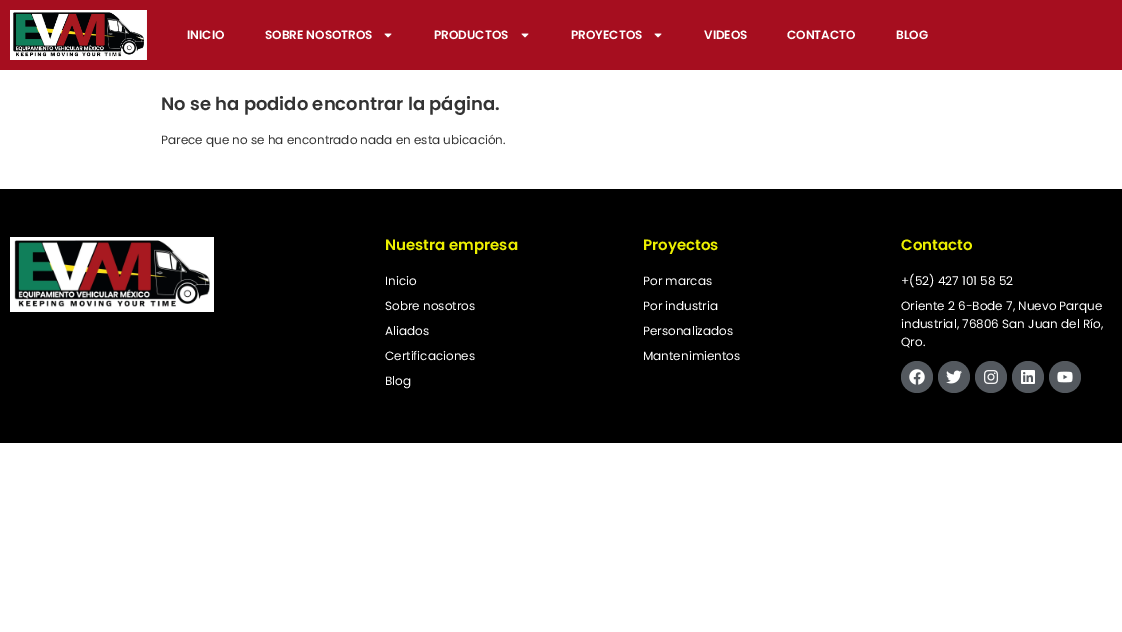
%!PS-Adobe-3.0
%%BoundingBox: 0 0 1122 632
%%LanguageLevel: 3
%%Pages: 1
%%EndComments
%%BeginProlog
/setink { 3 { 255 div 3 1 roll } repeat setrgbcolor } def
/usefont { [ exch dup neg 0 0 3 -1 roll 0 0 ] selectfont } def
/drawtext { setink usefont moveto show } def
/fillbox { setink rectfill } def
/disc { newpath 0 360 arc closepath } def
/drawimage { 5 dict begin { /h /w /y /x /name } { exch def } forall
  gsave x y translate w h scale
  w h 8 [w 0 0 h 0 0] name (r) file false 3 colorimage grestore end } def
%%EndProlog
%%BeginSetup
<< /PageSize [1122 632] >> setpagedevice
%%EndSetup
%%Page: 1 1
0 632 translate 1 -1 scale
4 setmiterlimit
0 0 1122 632 255 255 255 fillbox
0 0 1122 70 166 14 31 fillbox
(assets/img1.rgb) 10 10 137 50 drawimage
(INICIO) 187 39 /Poppins-SemiBold 12 255 255 255 drawtext
(SOBRE NOSOTROS) 265 39 /Poppins-SemiBold 12 255 255 255 drawtext
(assets/img2.rgb) 384 33 8 5 drawimage
(PRODUCTOS) 434 39 /Poppins-SemiBold 12 255 255 255 drawtext
(assets/img2.rgb) 521 33 8 5 drawimage
(PROYECTOS) 571 39 /Poppins-SemiBold 12 255 255 255 drawtext
(assets/img2.rgb) 654 33 8 5 drawimage
(VIDEOS) 704 39 /Poppins-SemiBold 12 255 255 255 drawtext
(CONTACTO) 787 39 /Poppins-SemiBold 12 255 255 255 drawtext
(BLOG) 896 39 /Poppins-SemiBold 12 255 255 255 drawtext
(No se ha podido encontrar la página.) 161 110 /Poppins-SemiBold 18 51 51 51 drawtext
(Parece que no se ha encontrado nada en esta ubicación.) 161 144 /Poppins-Regular 12 51 51 51 drawtext
0 189 1122 254 0 0 0 fillbox
(assets/img3.rgb) 10 237 204 75 drawimage
(Nuestra empresa) 385 250 /Poppins-SemiBold 15 237 240 0 drawtext
(Inicio) 385 285 /Poppins-Regular 12 255 255 255 drawtext
(Sobre nosotros) 385 310 /Poppins-Regular 12 255 255 255 drawtext
(Aliados) 385 335 /Poppins-Regular 12 255 255 255 drawtext
(Certificaciones) 385 360 /Poppins-Regular 12 255 255 255 drawtext
(Blog) 385 385 /Poppins-Regular 12 255 255 255 drawtext
(Proyectos) 643 250 /Poppins-SemiBold 15 237 240 0 drawtext
(Por marcas) 643 285 /Poppins-Regular 12 255 255 255 drawtext
(Por industria) 643 310 /Poppins-Regular 12 255 255 255 drawtext
(Personalizados) 643 335 /Poppins-Regular 12 255 255 255 drawtext
(Mantenimientos) 643 360 /Poppins-Regular 12 255 255 255 drawtext
(Contacto) 901 250 /Poppins-SemiBold 15 237 240 0 drawtext
(+\(52\) 427 101 58 52) 901 285 /Poppins-Regular 12 255 255 255 drawtext
(Oriente 2 6-Bode 7, Nuevo Parque) 901 310 /Poppins-Regular 12 255 255 255 drawtext
(industrial, 76806 San Juan del Río,) 901 328 /Poppins-Regular 12 255 255 255 drawtext
(Qro.) 901 346 /Poppins-Regular 12 255 255 255 drawtext
84 89 95 setink
917 377 16 disc fill
(assets/img4.rgb) 909 369 16 16 drawimage
954 377 16 disc fill
(assets/img5.rgb) 946 370 16 14 drawimage
991 377 16 disc fill
(assets/img6.rgb) 984 370 14 14 drawimage
1028 377 16 disc fill
(assets/img7.rgb) 1021 370 14 14 drawimage
1065 377 16 disc fill
(assets/img8.rgb) 1057 371 16 12 drawimage
showpage
%%EOF
